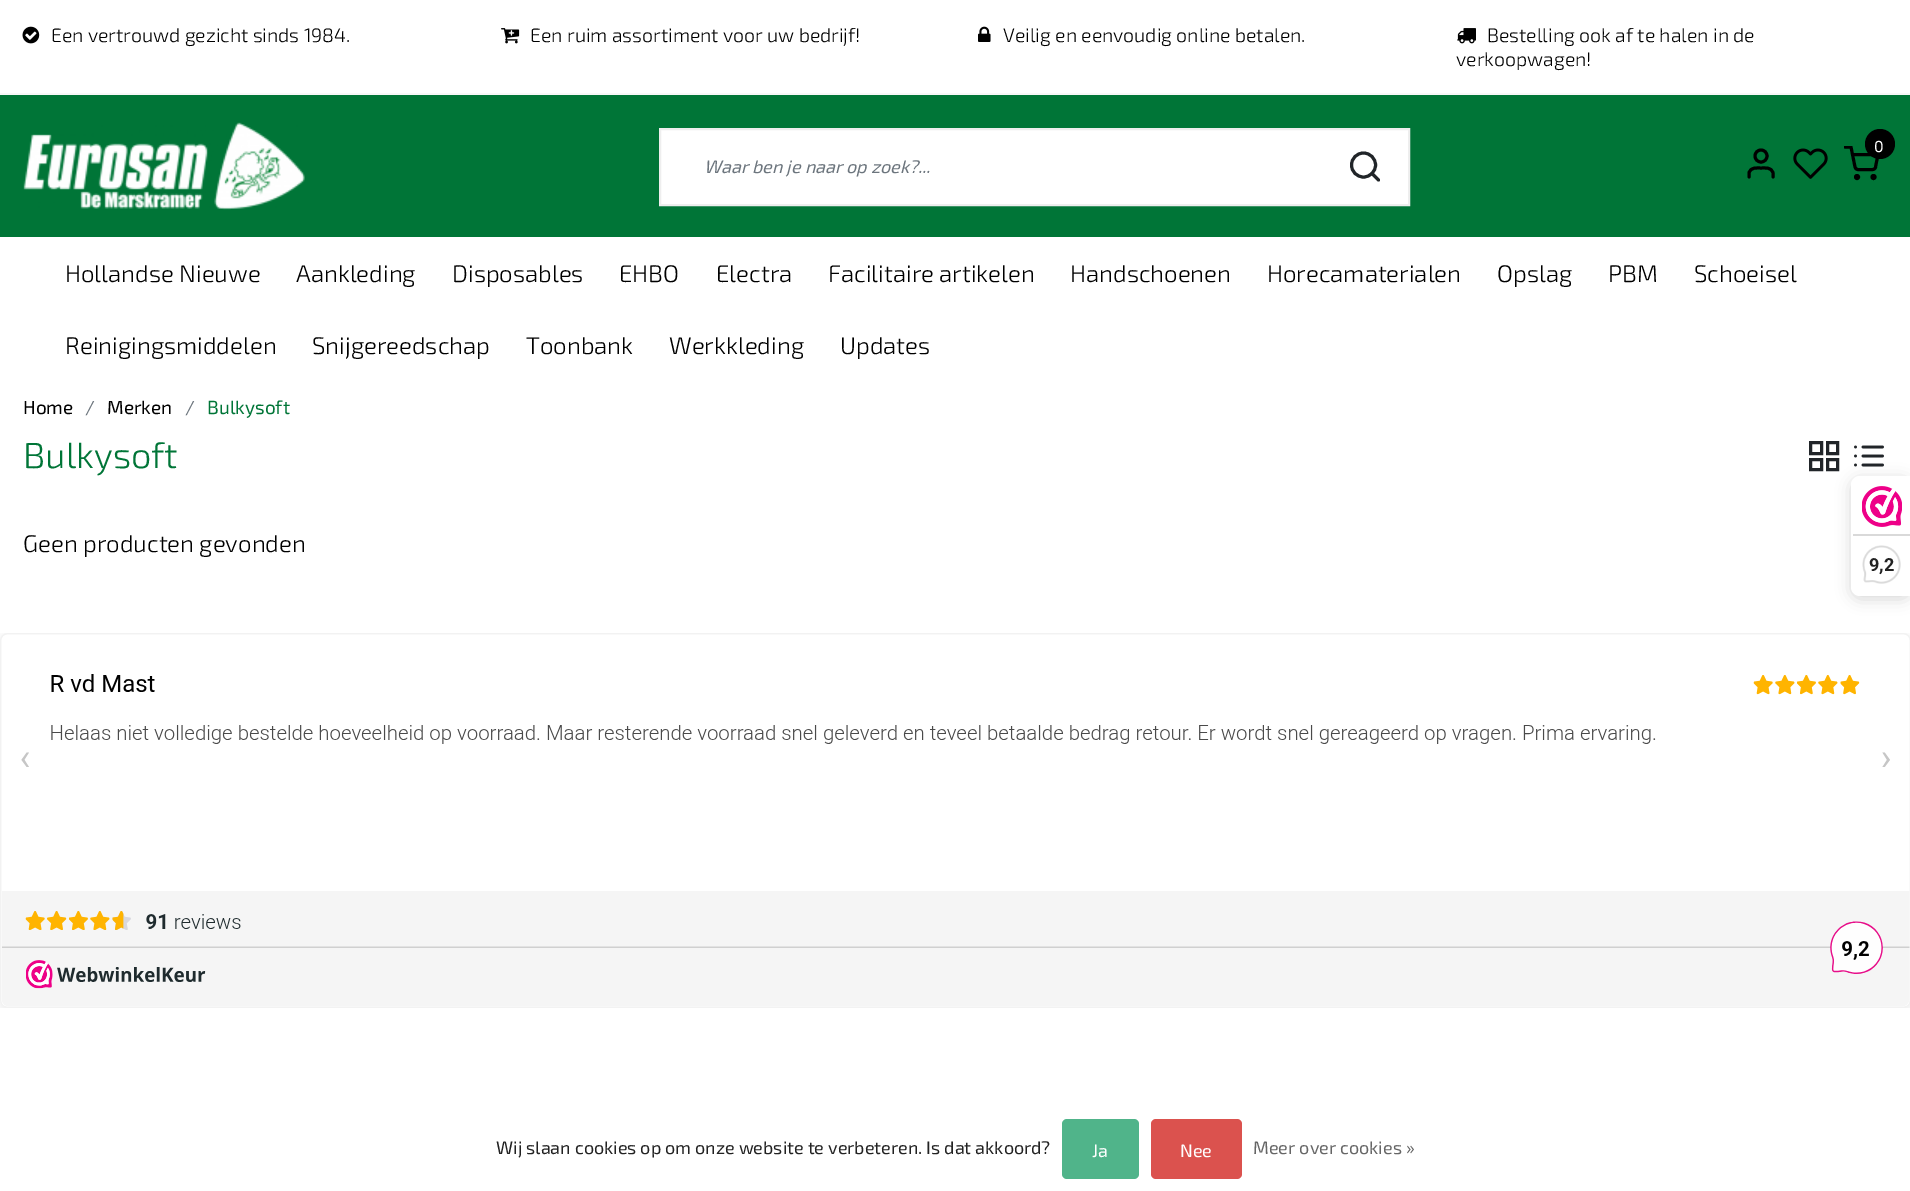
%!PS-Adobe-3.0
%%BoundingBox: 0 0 1910 1191
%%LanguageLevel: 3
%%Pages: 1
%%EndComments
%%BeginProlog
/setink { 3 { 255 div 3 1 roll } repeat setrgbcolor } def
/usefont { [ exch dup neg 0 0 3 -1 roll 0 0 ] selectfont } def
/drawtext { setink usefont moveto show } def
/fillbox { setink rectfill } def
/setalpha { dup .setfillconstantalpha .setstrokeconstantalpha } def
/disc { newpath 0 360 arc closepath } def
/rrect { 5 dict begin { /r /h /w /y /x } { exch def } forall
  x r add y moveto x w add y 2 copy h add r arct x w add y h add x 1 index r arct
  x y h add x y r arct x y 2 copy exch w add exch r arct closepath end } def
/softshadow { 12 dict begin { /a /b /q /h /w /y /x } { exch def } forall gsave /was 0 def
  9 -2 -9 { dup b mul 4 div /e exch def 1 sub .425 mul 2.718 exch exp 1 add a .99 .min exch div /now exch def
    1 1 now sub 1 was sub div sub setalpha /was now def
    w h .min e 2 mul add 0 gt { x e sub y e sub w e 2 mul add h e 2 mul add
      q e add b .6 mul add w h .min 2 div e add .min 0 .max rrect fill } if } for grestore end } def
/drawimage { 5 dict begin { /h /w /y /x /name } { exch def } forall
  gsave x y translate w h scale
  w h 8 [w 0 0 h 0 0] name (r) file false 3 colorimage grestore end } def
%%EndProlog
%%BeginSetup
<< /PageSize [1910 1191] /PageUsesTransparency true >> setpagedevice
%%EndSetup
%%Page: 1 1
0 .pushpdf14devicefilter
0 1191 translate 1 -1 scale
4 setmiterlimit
0 0 1910 1191 255 255 255 fillbox
0 93 1910 2 247 247 247 fillbox
(assets/img1.rgb) 22 26 18 18 drawimage
(Een vertrouwd gezicht sinds 1984.) 51 42 /Exo2-Light 19.5 0 0 0 drawtext
(assets/img2.rgb) 501 28 19 16 drawimage
(Een ruim assortiment voor uw bedrijf!) 530 42 /Exo2-Light 19.5 0 0 0 drawtext
(assets/img3.rgb) 978 26 13 16 drawimage
(Veilig en eenvoudig online betalen.) 1003 42 /Exo2-Light 19.5 0 0 0 drawtext
(assets/img4.rgb) 1457 28 19 16 drawimage
(Bestelling ook af te halen in de) 1487 42 /Exo2-Light 19.5 0 0 0 drawtext
(verkoopwagen!) 1456 66 /Exo2-Light 19.5 0 0 0 drawtext
0 95 1910 142 0 117 55 fillbox
(assets/img5.rgb) 23 122 282 88 drawimage
gsave
1844 146 36 36 rectclip
0 0 0 setink
3 setlinewidth
1 setlinecap
1 setlinejoin
1845 147 moveto 1851 147 lineto 1855 167 lineto 1855.5 168.5 1856.5 169.5 1858 169.5 curveto 1872.5 169.5 lineto 1874 169.5 1875.5 168.5 1875.5 167 curveto 1878 154.5 lineto 1852.5 154.5 lineto stroke
grestore
0 0 0 setink
1880 144 15 disc fill
(0) 1874 152 /Exo2-Regular 16 255 255 255 drawtext
0 0 0 setink
3 setlinewidth
1857 177 1.5 disc stroke
1873.5 177 1.5 disc stroke
1 setlinecap
1 setlinejoin
1773 177 moveto 1773 173 lineto 1771.5 167 1765.5 168 1761 168 curveto 1756.5 168 1750.5 167 1749 173 curveto 1749 177 lineto stroke
0 setlinecap
0 setlinejoin
1761 156 6 disc stroke
(assets/img6.rgb) 1793 148 35 31 drawimage
255 255 255 setink
660 129 moveto 1409 129 lineto 1409 205 lineto 660 205 lineto closepath gsave fill grestore
238 238 238 setink
2 setlinewidth
stroke
(Waar ben je naar op zoek?...) 704 173 /Exo2-Italic 18 108 117 125 drawtext
33 37 41 setink
3 setlinewidth
1363.5 165 12 disc stroke
1 setlinecap
1 setlinejoin
1378.5 180 moveto 1372 173.5 lineto stroke
(Hollandse Nieuwe) 65 282 /Exo2-Light 24 0 0 0 drawtext
(Aankleding) 296 282 /Exo2-Light 24 0 0 0 drawtext
(Disposables) 452 282 /Exo2-Light 24 0 0 0 drawtext
(EHBO) 619 282 /Exo2-Light 24 0 0 0 drawtext
(Electra) 716 282 /Exo2-Light 24 0 0 0 drawtext
(Facilitaire artikelen) 828 282 /Exo2-Light 24 0 0 0 drawtext
(Handschoenen) 1070 282 /Exo2-Light 24 0 0 0 drawtext
(Horecamaterialen) 1267 282 /Exo2-Light 24 0 0 0 drawtext
(Opslag) 1497 282 /Exo2-Light 24 0 0 0 drawtext
(PBM) 1608 282 /Exo2-Light 24 0 0 0 drawtext
(Schoeisel) 1694 282 /Exo2-Light 24 0 0 0 drawtext
(Reinigingsmiddelen) 65 354 /Exo2-Light 24 0 0 0 drawtext
(Snijgereedschap) 312 354 /Exo2-Light 24 0 0 0 drawtext
(Toonbank) 526 354 /Exo2-Light 24 0 0 0 drawtext
(Werkkleding) 669 354 /Exo2-Light 24 0 0 0 drawtext
(Updates) 840 354 /Exo2-Light 24 0 0 0 drawtext
(Home) 23 414 /Exo2-Regular 19 0 0 0 drawtext
(/) 85 414 /Exo2-Regular 19 108 117 125 drawtext
(Merken) 107 414 /Exo2-Regular 19 0 0 0 drawtext
(/) 185 414 /Exo2-Regular 19 108 117 125 drawtext
(Bulkysoft) 207 414 /Exo2-Regular 19 0 117 55 drawtext
(Bulkysoft) 23 468 /Exo2-Light 36 0 117 55 drawtext
33 37 41 setink
0 setlinecap
0 setlinejoin
1810.5 442.5 11 11 rectstroke
1827.5 442.5 10 11 rectstroke
1827.5 459.5 10 10 rectstroke
1810.5 459.5 11 10 rectstroke
(assets/img7.rgb) 1854 445 30 22 drawimage
(Geen producten gevonden) 23 552 /Exo2-Light 24 0 0 0 drawtext
(assets/img8.rgb) 0 633 1910 375 drawimage
1851 479 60 120 9 7.5 0.15 softshadow
255 255 255 setink
1860 476 moveto 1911 476 lineto 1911 596 lineto 1860 596 lineto 1855 596 1851 592 1851 587 curveto 1851 485 lineto 1851 480 1855 476 1860 476 curveto closepath fill
(assets/img9.rgb) 1862 486 40 41 drawimage
1853 534 57 2 217 217 217 fillbox
(assets/img10.rgb) 1862 545 39 39 drawimage
(9,2) 1869 571 /Roboto-Bold 18 34 34 34 drawtext
(Wij slaan cookies op om onze website te verbeteren. Is dat akkoord?) 496 1154 /Exo2-Regular 18 34 34 34 drawtext
80 180 138 setink
1062 1119 77 60 5 rrect fill
(Ja) 1092 1157 /Exo2-Regular 18 255 255 255 drawtext
219 82 78 setink
1151 1119 91 60 5 rrect fill
(Nee) 1180 1157 /Exo2-Regular 18 255 255 255 drawtext
(Meer over cookies ») 1253 1154 /Exo2-Regular 18 102 102 102 drawtext
.poppdf14devicefilter showpage
%%EOF
